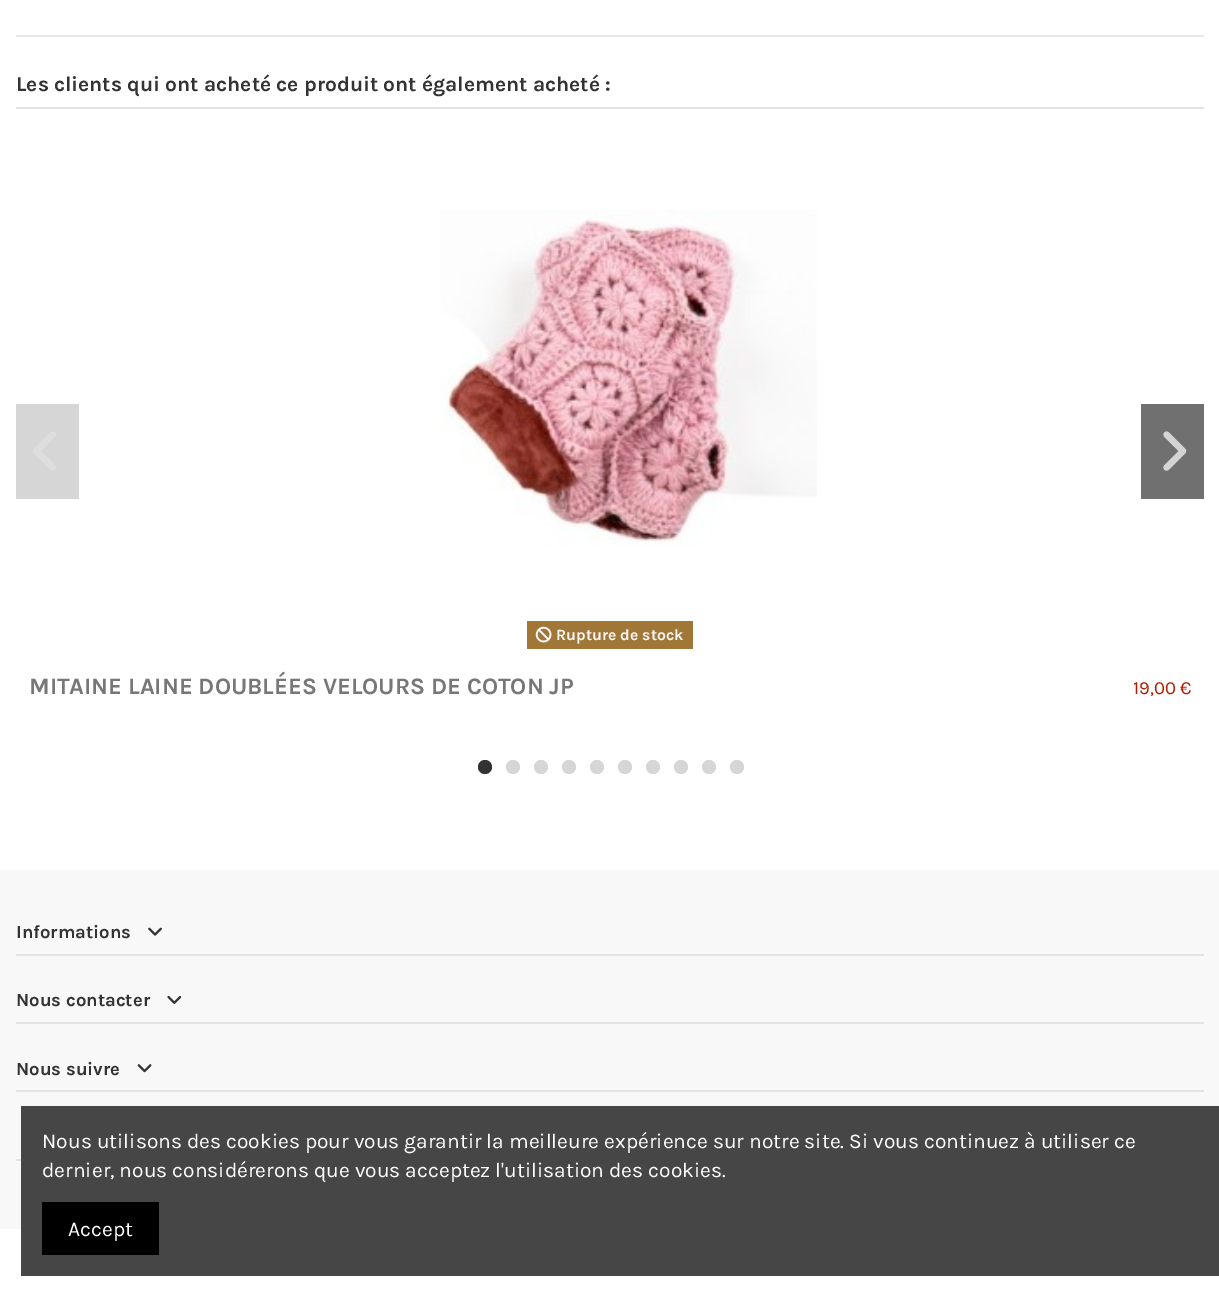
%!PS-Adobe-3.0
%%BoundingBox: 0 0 1219 1296
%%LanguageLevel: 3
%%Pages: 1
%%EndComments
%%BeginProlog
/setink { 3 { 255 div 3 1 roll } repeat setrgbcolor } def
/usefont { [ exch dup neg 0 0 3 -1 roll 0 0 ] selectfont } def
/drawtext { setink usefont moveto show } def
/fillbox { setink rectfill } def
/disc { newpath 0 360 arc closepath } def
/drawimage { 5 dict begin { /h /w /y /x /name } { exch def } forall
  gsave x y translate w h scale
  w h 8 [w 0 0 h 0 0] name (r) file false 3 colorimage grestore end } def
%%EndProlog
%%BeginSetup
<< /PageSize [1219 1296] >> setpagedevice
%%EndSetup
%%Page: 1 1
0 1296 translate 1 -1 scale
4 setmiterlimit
0 0 1219 1296 255 255 255 fillbox
16 35 1188 2 231 231 231 fillbox
16 107 1188 2 227 227 227 fillbox
(Les clients qui ont acheté ce produit ont également acheté :) 16 91 /Karla-Bold 21 51 51 51 drawtext
16 404 63 95 214 214 214 fillbox
(assets/img1.rgb) 33 431 23 40 drawimage
1141 404 63 95 112 112 112 fillbox
(assets/img2.rgb) 1163 431 24 40 drawimage
(assets/img3.rgb) 440 210 377 336 drawimage
527 621 166 28 161 119 56 fillbox
(assets/img4.rgb) 535 626 17 17 drawimage
(Rupture de stock) 556 640 /Karla-Bold 15.75 255 247 247 drawtext
(MITAINE LAINE DOUBLÉES VELOURS DE COTON JP) 29 694 /Karla-Bold 23.6 119 119 119 drawtext
(19,00 €) 1133 694 /Karla-Regular 18.5 173 31 0 drawtext
51 51 51 setink
485 767 7 disc fill
214 214 214 setink
513 767 7 disc fill
541 767 7 disc fill
569 767 7 disc fill
597 767 7 disc fill
625 767 7 disc fill
653 767 7 disc fill
681 767 7 disc fill
709 767 7 disc fill
737 767 7 disc fill
0 870 1219 359 248 248 248 fillbox
16 954 1188 2 227 227 227 fillbox
(Informations) 16 938 /Karla-Bold 18.5 51 51 51 drawtext
(assets/img5.rgb) 148 927 14 9 drawimage
16 1022 1188 2 227 227 227 fillbox
(Nous contacter) 16 1006 /Karla-Bold 18.5 51 51 51 drawtext
(assets/img6.rgb) 167 995 15 9 drawimage
16 1090 1188 2 227 227 227 fillbox
(Nous suivre) 16 1075 /Karla-Bold 18.5 51 51 51 drawtext
(assets/img7.rgb) 137 1064 15 9 drawimage
16 1159 5 2 227 227 227 fillbox
21 1106 1198 170 70 70 70 fillbox
(Nous utilisons des cookies pour vous garantir la meilleure expérience sur notre site. Si vous continuez à utiliser ce) 42 1148 /Karla-Regular 21 255 255 255 drawtext
(dernier, nous considérerons que vous acceptez l'utilisation des cookies.) 42 1177 /Karla-Regular 21 255 255 255 drawtext
42 1202 117 53 0 0 0 fillbox
(Accept) 68 1236 /Karla-Regular 21 255 255 255 drawtext
showpage
%%EOF
